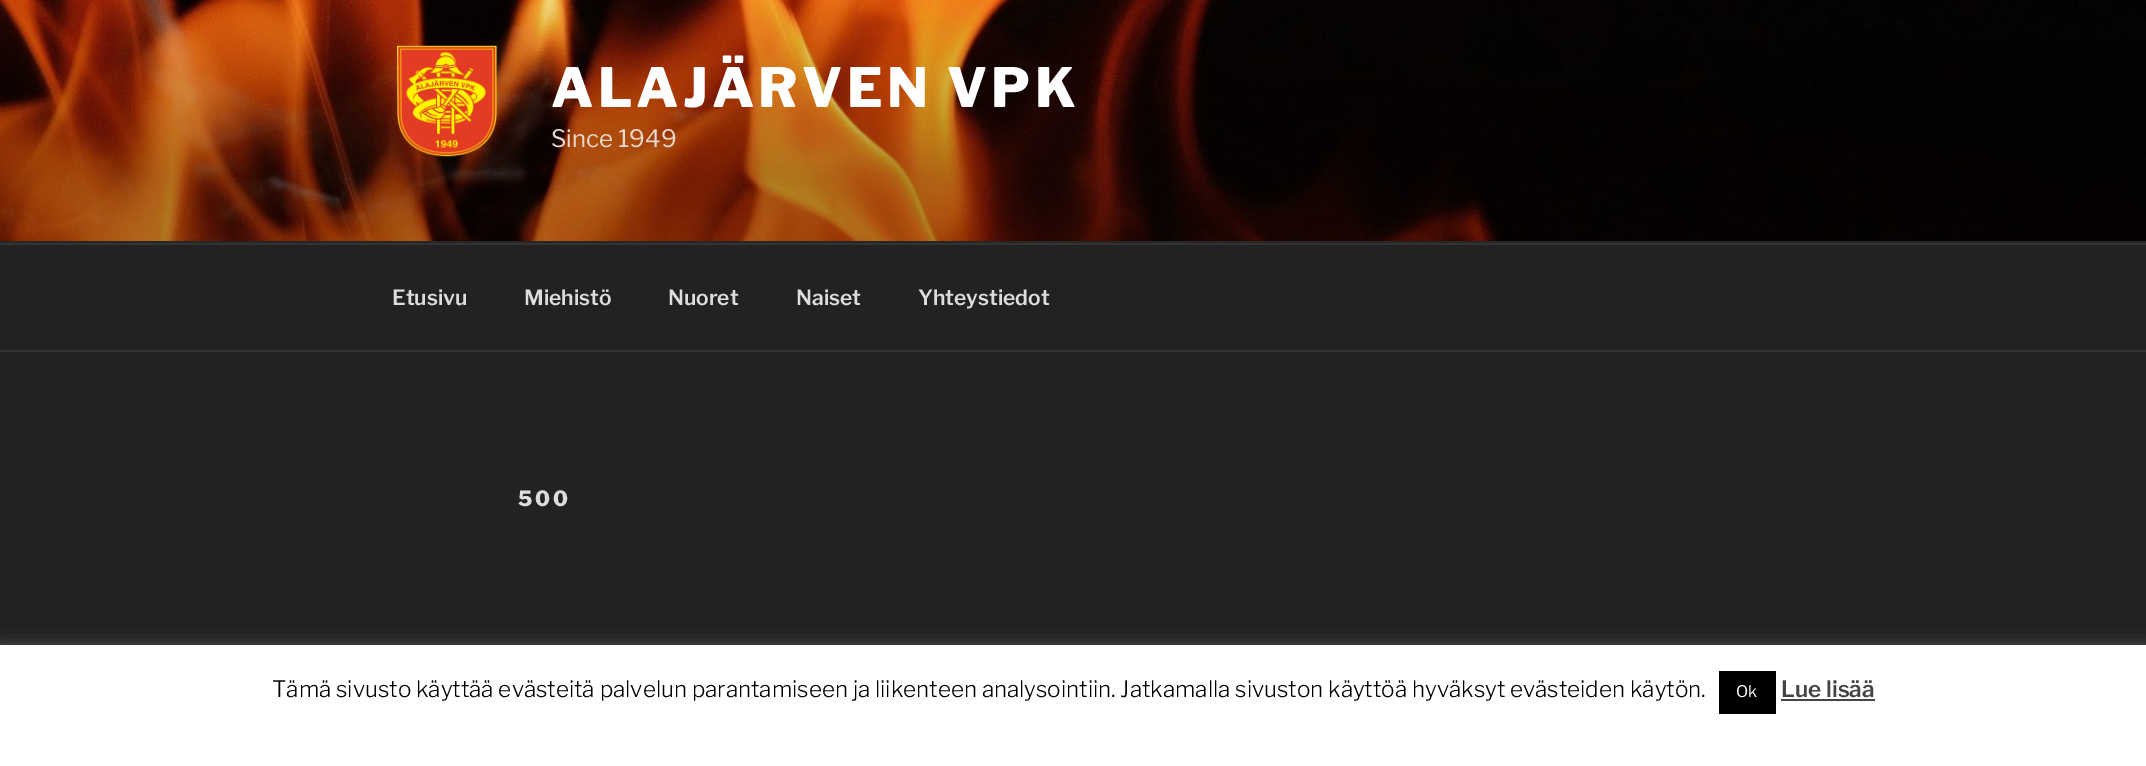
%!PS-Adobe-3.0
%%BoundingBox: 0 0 2146 766
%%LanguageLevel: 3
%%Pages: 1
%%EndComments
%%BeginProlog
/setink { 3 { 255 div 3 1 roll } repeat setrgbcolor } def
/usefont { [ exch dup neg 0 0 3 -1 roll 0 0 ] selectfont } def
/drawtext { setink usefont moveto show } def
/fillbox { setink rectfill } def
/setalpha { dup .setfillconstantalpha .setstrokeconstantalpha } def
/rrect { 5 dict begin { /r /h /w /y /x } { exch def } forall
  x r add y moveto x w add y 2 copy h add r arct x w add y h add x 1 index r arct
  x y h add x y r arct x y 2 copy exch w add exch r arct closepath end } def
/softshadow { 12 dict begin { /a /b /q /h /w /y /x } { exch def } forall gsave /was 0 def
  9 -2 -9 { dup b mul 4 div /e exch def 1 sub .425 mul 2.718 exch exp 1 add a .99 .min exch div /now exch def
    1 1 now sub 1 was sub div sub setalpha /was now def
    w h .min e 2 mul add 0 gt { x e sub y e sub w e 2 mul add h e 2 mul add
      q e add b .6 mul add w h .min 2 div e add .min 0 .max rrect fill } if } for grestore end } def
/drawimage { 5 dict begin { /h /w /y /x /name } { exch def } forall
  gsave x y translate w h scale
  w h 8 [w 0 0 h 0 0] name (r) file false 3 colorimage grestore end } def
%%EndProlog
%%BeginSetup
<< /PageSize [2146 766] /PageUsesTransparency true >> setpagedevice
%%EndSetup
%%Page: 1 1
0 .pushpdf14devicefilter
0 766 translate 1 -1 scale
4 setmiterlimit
0 0 2146 766 34 34 34 fillbox
0 241 2146 2 38 38 38 fillbox
(assets/img1.rgb) 0 0 2146 241 drawimage
(assets/img2.rgb) 397 45 101 112 drawimage
/LibreFranklin-Thin 54 usefont
255 255 255 setink
551 107 moveto 4.25 0 (ALAJÄRVEN VPK) ashow
(Since 1949) 551 147 /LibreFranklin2-Thin 24 234 216 206 drawtext
0 243 2146 2 51 51 51 fillbox
0 350 2146 2 51 51 51 fillbox
(Etusivu) 392 305 /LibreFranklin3-Thin 21 221 221 221 drawtext
(Miehistö) 524 305 /LibreFranklin3-Thin 21 221 221 221 drawtext
(Nuoret) 668 305 /LibreFranklin3-Thin 21 221 221 221 drawtext
(Naiset) 796 305 /LibreFranklin3-Thin 21 221 221 221 drawtext
(Yhteystiedot) 918 305 /LibreFranklin3-Thin 21 221 221 221 drawtext
/LibreFranklin-Thin 21 usefont
518 506 moveto 3 0 (500) ashow
172 171 171 setink
0 644 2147 121 0 7.5 0.3 softshadow
0 645 2146 121 255 255 255 fillbox
(Tämä sivusto käyttää evästeitä palvelun parantamiseen ja liikenteen analysointiin. Jatkamalla sivuston käyttöä hyväksyt evästeiden käytön.) 272 697 /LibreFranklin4-Thin 22.5 0 0 0 drawtext
1719 671 57 43 0 0 0 fillbox
(Ok) 1736 697 /LibreFranklin2-Thin 16 255 255 255 drawtext
(Lue lisää) 1781 697 /LibreFranklin3-Thin 22.5 68 68 68 drawtext
1781 699 94 2 68 68 68 fillbox
.poppdf14devicefilter showpage
%%EOF
